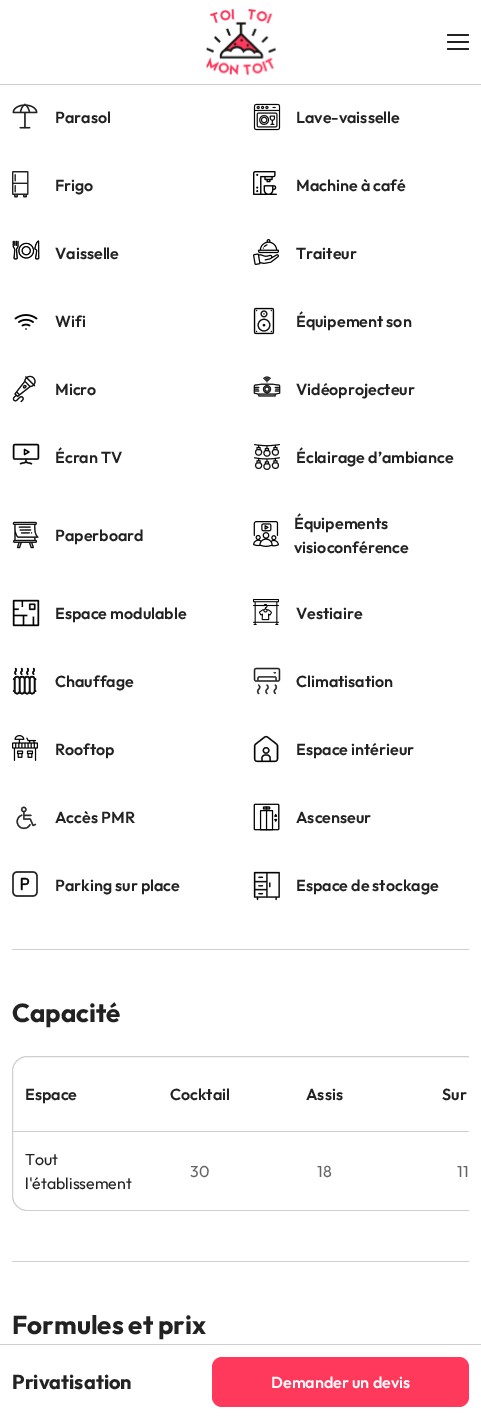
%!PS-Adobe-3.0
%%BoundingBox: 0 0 481 1419
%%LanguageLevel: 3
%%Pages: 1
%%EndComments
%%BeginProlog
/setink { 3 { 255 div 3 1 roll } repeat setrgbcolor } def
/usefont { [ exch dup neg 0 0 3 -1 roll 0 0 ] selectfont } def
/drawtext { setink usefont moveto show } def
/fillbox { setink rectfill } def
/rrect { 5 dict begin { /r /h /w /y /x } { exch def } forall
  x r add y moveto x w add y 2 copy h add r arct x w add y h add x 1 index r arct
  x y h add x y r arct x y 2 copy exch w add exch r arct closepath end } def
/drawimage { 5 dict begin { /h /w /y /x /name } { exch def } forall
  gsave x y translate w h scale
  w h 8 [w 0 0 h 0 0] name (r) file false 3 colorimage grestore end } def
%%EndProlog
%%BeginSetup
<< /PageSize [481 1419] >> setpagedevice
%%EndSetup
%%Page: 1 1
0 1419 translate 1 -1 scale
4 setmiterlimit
0 0 481 1419 255 255 255 fillbox
0 84 481 1 207 207 207 fillbox
(assets/img1.rgb) 206 9 70 67 drawimage
34 34 34 setink
447 34 22 2 1 rrect fill
447 41 22 2 1 rrect fill
447 48 22 2 1 rrect fill
(assets/img2.rgb) 12 103 26 26 drawimage
(Parasol) 55 123 /Outfit-SemiBold 16 34 34 34 drawtext
(assets/img3.rgb) 253 103 28 28 drawimage
(Lave-vaisselle) 296 123 /Outfit-SemiBold 16 34 34 34 drawtext
(assets/img4.rgb) 12 171 17 27 drawimage
(Frigo) 55 191 /Outfit-SemiBold 16 34 34 34 drawtext
(assets/img5.rgb) 253 171 24 24 drawimage
(Machine à café) 296 191 /Outfit-SemiBold 16 34 34 34 drawtext
(assets/img6.rgb) 12 240 28 20 drawimage
(Vaisselle) 55 259 /Outfit-SemiBold 16 34 34 34 drawtext
(assets/img7.rgb) 253 239 26 26 drawimage
(Traiteur) 296 259 /Outfit-SemiBold 16 34 34 34 drawtext
(assets/img8.rgb) 14 314 24 16 drawimage
(Wifi) 55 327 /Outfit-SemiBold 16 34 34 34 drawtext
(assets/img9.rgb) 253 307 22 28 drawimage
(Équipement son) 296 327 /Outfit-SemiBold 16 34 34 34 drawtext
(assets/img10.rgb) 12 375 24 28 drawimage
(Micro) 55 395 /Outfit-SemiBold 16 34 34 34 drawtext
(assets/img11.rgb) 253 376 28 21 drawimage
(Vidéoprojecteur) 296 395 /Outfit-SemiBold 16 34 34 34 drawtext
(assets/img12.rgb) 12 443 28 22 drawimage
(Écran TV) 55 463 /Outfit-SemiBold 16 34 34 34 drawtext
(assets/img13.rgb) 253 443 28 27 drawimage
(Éclairage d’ambiance) 296 463 /Outfit-SemiBold 16 34 34 34 drawtext
(assets/img14.rgb) 12 521 27 28 drawimage
(Paperboard) 55 541 /Outfit-SemiBold 16 34 34 34 drawtext
(assets/img15.rgb) 253 521 26 26 drawimage
(Équipements) 294 529 /Outfit-SemiBold 16 34 34 34 drawtext
(visioconférence) 294 553 /Outfit-SemiBold 16 34 34 34 drawtext
(assets/img16.rgb) 12 599 28 28 drawimage
(Espace modulable) 55 619 /Outfit-SemiBold 16 34 34 34 drawtext
(assets/img17.rgb) 253 599 26 26 drawimage
(Vestiaire) 296 619 /Outfit-SemiBold 16 34 34 34 drawtext
(assets/img18.rgb) 12 667 25 28 drawimage
(Chauffage) 55 687 /Outfit-SemiBold 16 34 34 34 drawtext
(assets/img19.rgb) 253 667 28 28 drawimage
(Climatisation) 296 687 /Outfit-SemiBold 16 34 34 34 drawtext
(assets/img20.rgb) 12 735 26 26 drawimage
(Rooftop) 55 755 /Outfit-SemiBold 16 34 34 34 drawtext
(assets/img21.rgb) 253 735 26 28 drawimage
(Espace intérieur) 296 755 /Outfit-SemiBold 16 34 34 34 drawtext
(assets/img22.rgb) 16 806 21 24 drawimage
(Accès PMR) 55 823 /Outfit-SemiBold 16 34 34 34 drawtext
(assets/img23.rgb) 253 803 27 28 drawimage
(Ascenseur) 296 823 /Outfit-SemiBold 16 34 34 34 drawtext
(assets/img24.rgb) 12 871 26 26 drawimage
(Parking sur place) 55 891 /Outfit-SemiBold 16 34 34 34 drawtext
(assets/img25.rgb) 253 871 27 30 drawimage
(Espace de stockage) 296 891 /Outfit-SemiBold 16 34 34 34 drawtext
12 949 457 1 207 207 207 fillbox
(Capacité) 12 1022 /Outfit-Bold 26 34 34 34 drawtext
gsave
12 1056 457 155 rectclip
207 207 207 setink
12.5 1056.5 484 154 14.5 rrect stroke
grestore
13 1131 456 1 207 207 207 fillbox
(Espace) 25 1100 /Outfit-SemiBold 16 34 34 34 drawtext
(Cocktail) 170 1100 /Outfit-SemiBold 16 34 34 34 drawtext
(Assis) 306 1100 /Outfit-SemiBold 16 34 34 34 drawtext
(Sur) 442 1100 /Outfit-SemiBold 16 34 34 34 drawtext
(Tout) 25 1165 /Outfit-Regular 16 34 34 34 drawtext
(l'établissement) 25 1189 /Outfit-Regular 16 34 34 34 drawtext
(30) 190 1177 /Outfit-Regular 16 100 100 100 drawtext
(18) 317 1177 /Outfit-Regular 16 100 100 100 drawtext
(11) 457 1177 /Outfit-Regular 16 100 100 100 drawtext
12 1261 457 1 207 207 207 fillbox
(Formules et prix) 12 1334 /Outfit-Bold 26 34 34 34 drawtext
0 1344 481 1 207 207 207 fillbox
(Privatisation) 12 1389 /Outfit-Bold 20 34 34 34 drawtext
255 57 92 setink
212 1357 257 50 10 rrect fill
(Demander un devis) 271 1388 /Outfit-SemiBold 16 255 255 255 drawtext
showpage
%%EOF
